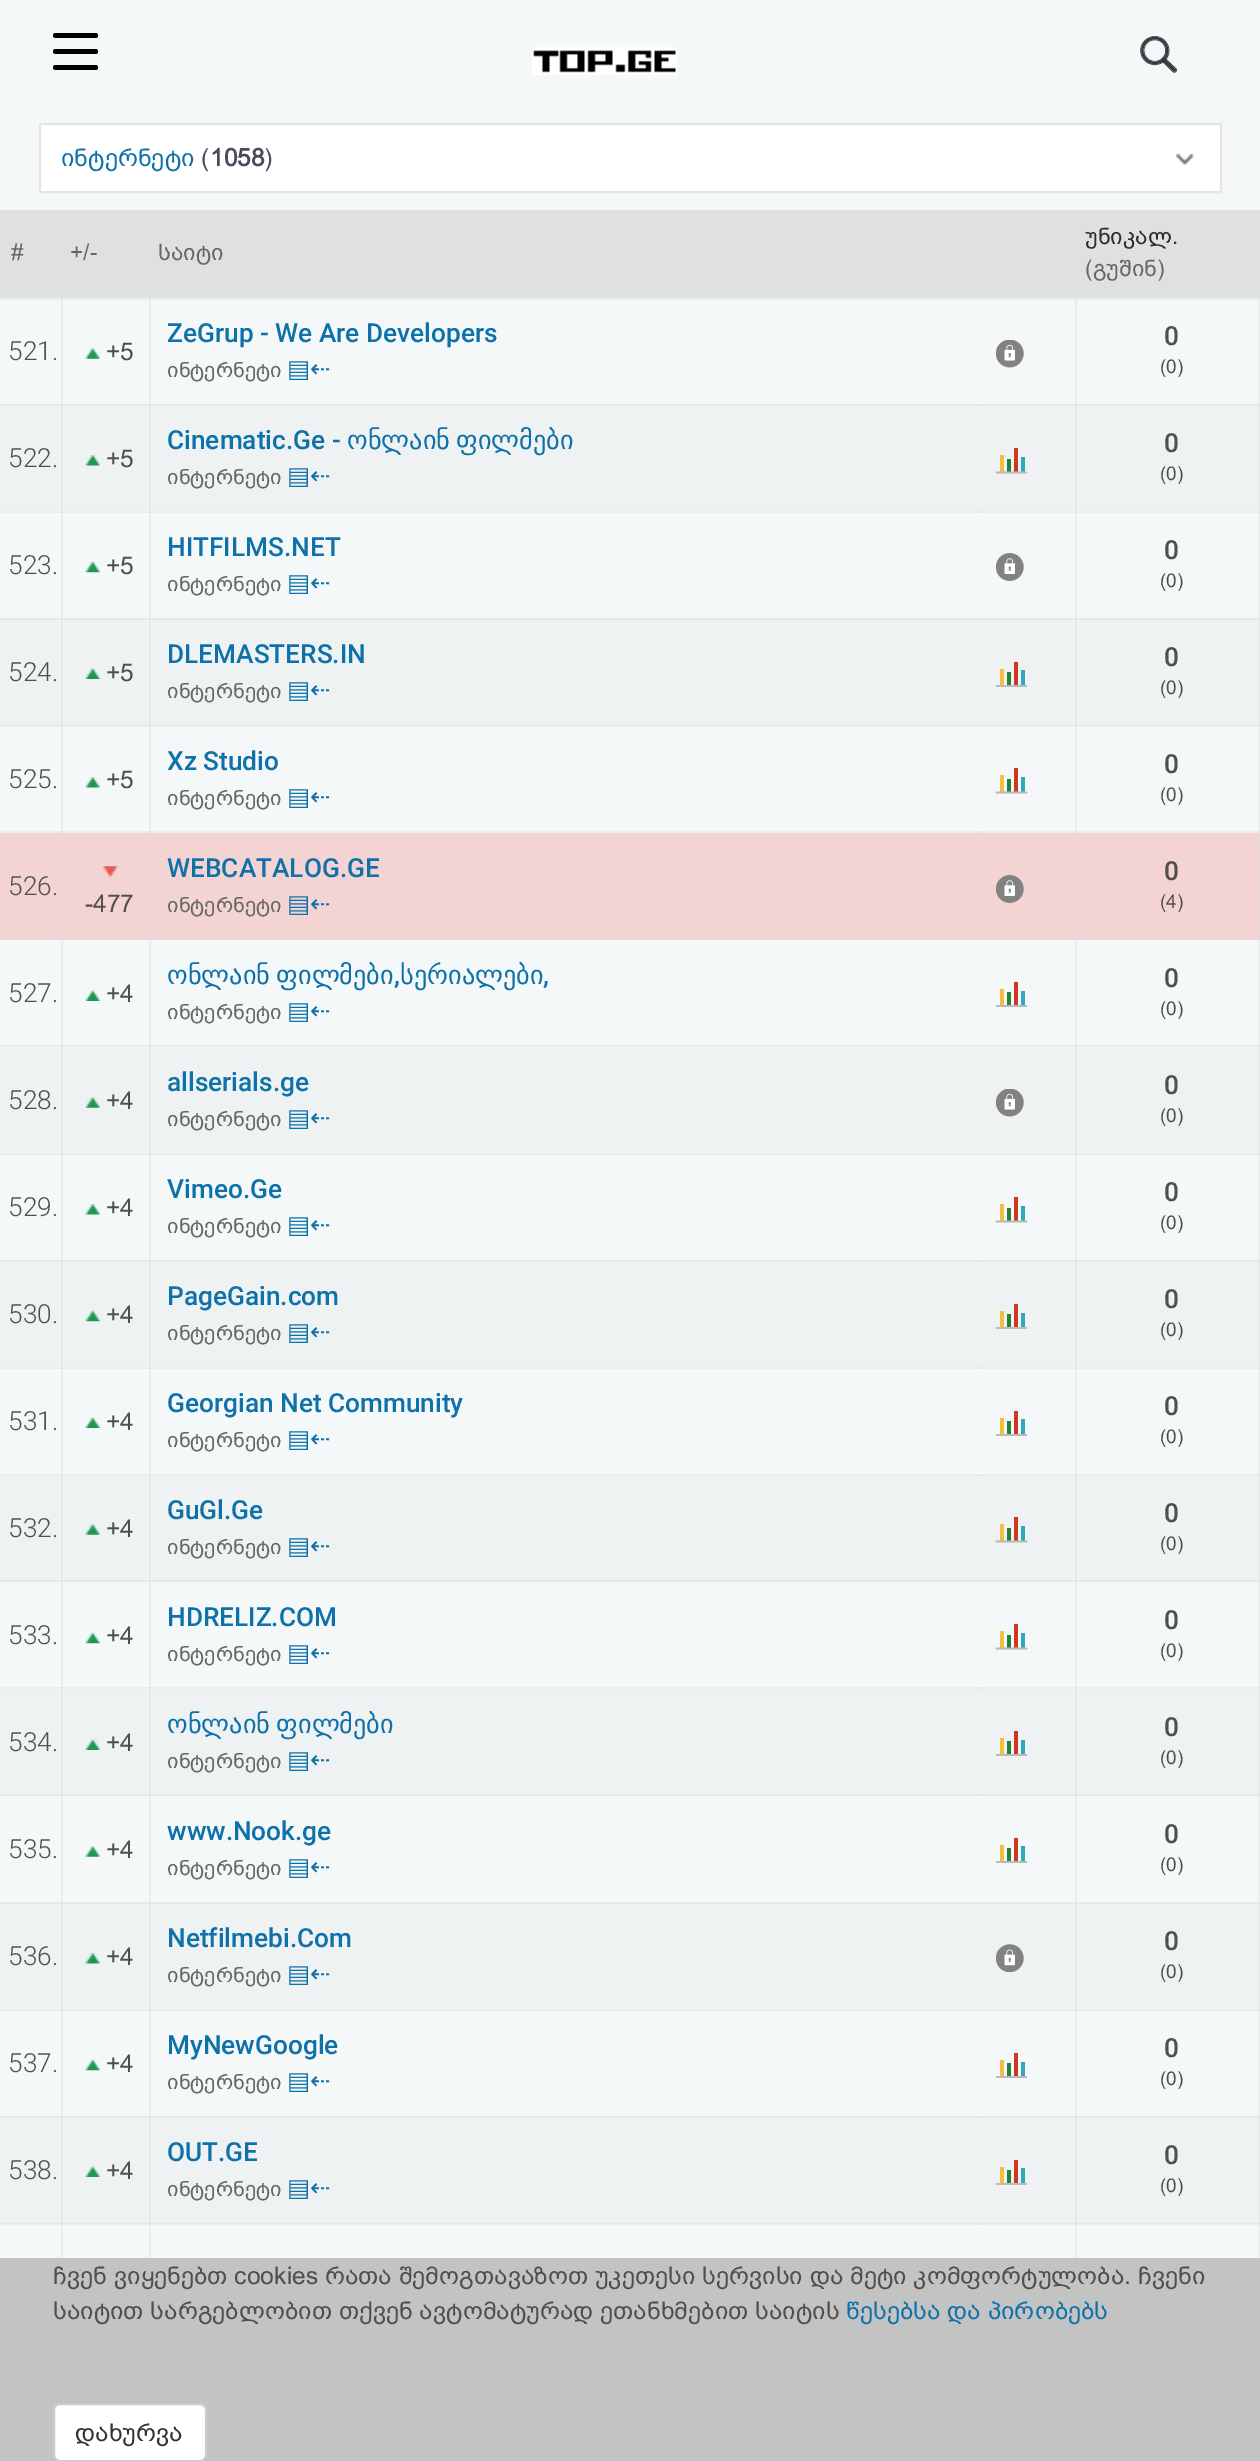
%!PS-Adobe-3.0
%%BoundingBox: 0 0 1260 2461
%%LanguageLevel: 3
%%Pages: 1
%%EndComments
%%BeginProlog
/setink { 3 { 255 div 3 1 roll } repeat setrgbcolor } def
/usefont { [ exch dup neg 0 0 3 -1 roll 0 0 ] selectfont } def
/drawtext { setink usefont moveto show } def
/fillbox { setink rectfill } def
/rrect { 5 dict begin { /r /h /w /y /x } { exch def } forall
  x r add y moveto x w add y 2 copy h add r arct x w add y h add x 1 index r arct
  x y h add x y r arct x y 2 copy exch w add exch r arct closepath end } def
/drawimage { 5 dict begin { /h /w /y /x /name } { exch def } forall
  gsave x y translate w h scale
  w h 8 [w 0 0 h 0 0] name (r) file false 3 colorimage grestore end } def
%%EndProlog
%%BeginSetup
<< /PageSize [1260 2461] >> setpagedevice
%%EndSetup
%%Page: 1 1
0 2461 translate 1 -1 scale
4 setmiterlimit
0 0 1260 2461 244 248 249 fillbox
61 298 2 108 235 238 238 fillbox
0 298 63 2 235 238 238 fillbox
149 298 2 108 235 238 238 fillbox
61 298 919 2 235 238 238 fillbox
61 298 2 2 227 228 228 fillbox
149 298 2 2 227 228 228 fillbox
1075 298 2 108 235 238 238 fillbox
978 298 98 2 235 238 238 fillbox
978 298 2 2 230 232 232 fillbox
1258 298 2 108 235 238 238 fillbox
61 511 2 109 235 238 238 fillbox
0 511 63 2 235 238 238 fillbox
149 511 2 109 235 238 238 fillbox
61 511 919 2 235 238 238 fillbox
61 511 2 2 225 225 225 fillbox
149 511 2 2 225 225 225 fillbox
1075 511 2 109 235 238 238 fillbox
978 511 98 2 235 238 238 fillbox
978 511 2 2 230 232 232 fillbox
1258 511 2 109 235 238 238 fillbox
61 725 2 108 235 238 238 fillbox
0 726 63 1 235 238 238 fillbox
149 725 2 108 235 238 238 fillbox
61 726 919 1 235 238 238 fillbox
61 726 2 1 227 228 228 fillbox
149 726 2 1 227 228 228 fillbox
1075 725 2 108 235 238 238 fillbox
978 726 98 1 235 238 238 fillbox
978 726 2 1 230 232 232 fillbox
1258 725 2 108 235 238 238 fillbox
1075 726 185 1 235 238 238 fillbox
1075 726 2 1 230 232 232 fillbox
1075 725 1 2 227 228 228 fillbox
1258 726 2 1 230 232 232 fillbox
0 831 1076 2 235 238 238 fillbox
61 831 2 2 225 225 225 fillbox
149 831 2 2 225 225 225 fillbox
978 831 2 2 230 232 232 fillbox
61 938 2 109 235 238 238 fillbox
149 938 2 109 235 238 238 fillbox
1075 938 2 109 235 238 238 fillbox
1258 938 2 109 235 238 238 fillbox
0 1045 1076 2 235 238 238 fillbox
61 1045 2 2 225 225 225 fillbox
149 1045 2 2 225 225 225 fillbox
978 1045 2 2 230 232 232 fillbox
61 1153 2 109 235 238 238 fillbox
0 1153 63 2 235 238 238 fillbox
149 1153 2 109 235 238 238 fillbox
61 1153 919 2 235 238 238 fillbox
61 1153 2 2 225 225 225 fillbox
149 1153 2 2 225 225 225 fillbox
1075 1153 2 109 235 238 238 fillbox
978 1153 98 2 235 238 238 fillbox
978 1153 2 2 230 232 232 fillbox
1258 1153 2 109 235 238 238 fillbox
61 1367 2 108 235 238 238 fillbox
0 1367 63 2 235 238 238 fillbox
149 1367 2 108 235 238 238 fillbox
61 1367 919 2 235 238 238 fillbox
61 1367 2 2 225 225 225 fillbox
149 1367 2 2 225 225 225 fillbox
1075 1367 2 108 235 238 238 fillbox
978 1367 98 2 235 238 238 fillbox
978 1367 2 2 230 232 232 fillbox
1258 1367 2 108 235 238 238 fillbox
0 1474 1260 1 235 238 238 fillbox
61 1474 2 1 225 225 225 fillbox
149 1474 2 1 225 225 225 fillbox
978 1474 2 1 230 232 232 fillbox
1075 1474 2 1 227 228 228 fillbox
1075 1474 1 1 225 225 225 fillbox
1258 1474 2 1 227 228 228 fillbox
61 1580 2 109 235 238 238 fillbox
149 1580 2 109 235 238 238 fillbox
1075 1580 2 109 235 238 238 fillbox
1258 1580 2 109 235 238 238 fillbox
0 1687 1260 2 235 238 238 fillbox
61 1687 2 2 225 225 225 fillbox
149 1687 2 2 225 225 225 fillbox
978 1687 2 2 230 232 232 fillbox
61 1794 2 110 235 238 238 fillbox
149 1794 2 110 235 238 238 fillbox
1075 1794 2 110 235 238 238 fillbox
1258 1794 2 110 235 238 238 fillbox
61 2009 2 109 235 238 238 fillbox
0 2009 63 2 235 238 238 fillbox
149 2009 2 109 235 238 238 fillbox
61 2009 919 2 235 238 238 fillbox
61 2009 2 2 225 225 225 fillbox
149 2009 2 2 225 225 225 fillbox
1075 2009 2 109 235 238 238 fillbox
978 2009 98 2 235 238 238 fillbox
978 2009 2 2 230 232 232 fillbox
1258 2009 2 109 235 238 238 fillbox
61 2223 2 35 235 238 238 fillbox
0 2224 63 1 235 238 238 fillbox
149 2223 2 35 235 238 238 fillbox
61 2224 919 1 235 238 238 fillbox
61 2224 2 1 227 228 228 fillbox
149 2224 2 1 227 228 228 fillbox
1075 2223 2 35 235 238 238 fillbox
978 2224 98 1 235 238 238 fillbox
978 2224 2 1 230 232 232 fillbox
1258 2223 2 35 235 238 238 fillbox
1075 2224 185 1 235 238 238 fillbox
1075 2224 2 1 230 232 232 fillbox
1075 2223 1 2 227 228 228 fillbox
1258 2224 2 1 230 232 232 fillbox
0 0 0 setink
53 33 45 5 2.5 rrect fill
53 49 45 5 2.5 rrect fill
53 65 45 5 2.5 rrect fill
(assets/img1.rgb) 532 47 145 28 drawimage
(assets/img2.rgb) 1140 36 37 37 drawimage
255 255 255 setink
40 124 moveto 1221 124 lineto 1221 192 lineto 40 192 lineto closepath gsave fill grestore
229 229 229 setink
2 setlinewidth
stroke
(ინტერნეტი) 61 166 /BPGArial-Regular 24.5 14 113 169 drawtext
(\() 201 166 /BPGArial-Regular 24.5 73 76 89 drawtext
(1058) 210 166 /BPGArial-Bold 24.5 73 76 89 drawtext
(\)) 264 166 /BPGArial-Regular 24.5 73 76 89 drawtext
(assets/img3.rgb) 1176 154 18 11 drawimage
0 210 1260 88 222 224 225 fillbox
(#) 11 260 /BPGArial-Regular 22.75 102 102 102 drawtext
(+/-) 70 260 /BPGArial-Regular 22.75 102 102 102 drawtext
(საიტი) 158 260 /BPGArial-Regular 22.75 102 102 102 drawtext
(უნიკალ.) 1085 244 /BPGArial-Regular 22.75 45 45 45 drawtext
(\(გუშინ\)) 1085 276 /BPGArial-Regular 22.75 102 102 102 drawtext
(521.) 8 360 /Roboto-Light 26.25 79 79 79 drawtext
(assets/img4.rgb) 85 348 15 11 drawimage
(+5) 106 360 /BPGArial-Regular 24.5 79 79 79 drawtext
(ZeGrup - We Are Developers) 167 342 /Roboto-Medium 26.25 14 113 169 drawtext
(ინტერნეტი) 167 377 /BPGArial-Regular 21 102 102 102 drawtext
(▤⇠) 287 377 /DejaVuSans-Regular 24.5 14 113 169 drawtext
(assets/img5.rgb) 996 340 28 28 drawimage
1075 298 185 2 235 238 238 fillbox
1075 298 2 2 230 232 232 fillbox
1075 298 1 2 227 228 228 fillbox
1258 298 2 2 230 232 232 fillbox
(0) 1164 345 /Roboto-Medium 26.25 79 79 79 drawtext
(\(0\)) 1160 373 /BPGArial-Regular 19 79 79 79 drawtext
0 406 1258 105 238 242 242 fillbox
61 404 2 107 232 234 234 fillbox
0 404 63 2 232 234 234 fillbox
149 404 2 107 232 234 234 fillbox
61 404 919 2 232 234 234 fillbox
61 404 2 2 223 224 224 fillbox
149 404 2 2 223 224 224 fillbox
1075 404 2 107 232 234 234 fillbox
978 404 98 2 232 234 234 fillbox
978 404 2 2 228 229 229 fillbox
1258 404 2 107 232 234 234 fillbox
(522.) 8 467 /Roboto-Light 26.25 79 79 79 drawtext
(assets/img6.rgb) 85 455 15 11 drawimage
(+5) 106 467 /BPGArial-Regular 24.5 79 79 79 drawtext
(Cinematic.Ge -) 167 449 /Roboto-Medium 26.25 14 113 169 drawtext
(ონლაინ) 347 449 /DejaVuSans-Regular 26.25 14 113 169 drawtext
(ფილმები) 456 449 /DejaVuSans-Regular 26.25 14 113 169 drawtext
(ინტერნეტი) 167 484 /BPGArial-Regular 21 102 102 102 drawtext
(▤⇠) 287 484 /DejaVuSans-Regular 24.5 14 113 169 drawtext
1000 455 4 18 245 190 64 fillbox
1007 459 4 14 36 129 57 fillbox
1014 448 4 25 207 55 34 fillbox
1021 457 4 16 50 169 184 fillbox
186 186 186 setink
1.8 setlinewidth
1 setlinecap
1 setlinejoin
996.5 472.5 moveto 1026.5 472.5 lineto stroke
1075 404 185 2 232 234 234 fillbox
1075 404 2 2 225 226 226 fillbox
1258 404 2 2 225 226 226 fillbox
(0) 1164 452 /Roboto-Medium 26.25 79 79 79 drawtext
(\(0\)) 1160 480 /BPGArial-Regular 19 79 79 79 drawtext
(523.) 8 574 /Roboto-Light 26.25 79 79 79 drawtext
(assets/img7.rgb) 85 561 15 12 drawimage
(+5) 106 574 /BPGArial-Regular 24.5 79 79 79 drawtext
(HITFILMS.NET) 167 556 /Roboto-Medium 26.25 14 113 169 drawtext
(ინტერნეტი) 167 591 /BPGArial-Regular 21 102 102 102 drawtext
(▤⇠) 287 591 /DejaVuSans-Regular 24.5 14 113 169 drawtext
(assets/img8.rgb) 996 553 28 28 drawimage
1075 511 185 2 235 238 238 fillbox
1075 511 2 2 227 228 228 fillbox
1075 511 1 2 225 225 225 fillbox
1258 511 2 2 227 228 228 fillbox
(0) 1164 559 /Roboto-Medium 26.25 79 79 79 drawtext
(\(0\)) 1160 587 /BPGArial-Regular 19 79 79 79 drawtext
0 620 1258 105 238 242 242 fillbox
61 618 2 108 232 234 234 fillbox
0 618 63 2 232 234 234 fillbox
149 618 2 108 232 234 234 fillbox
61 618 919 2 232 234 234 fillbox
61 618 2 2 223 224 224 fillbox
149 618 2 2 223 224 224 fillbox
1075 618 2 108 232 234 234 fillbox
978 618 98 2 232 234 234 fillbox
978 618 2 2 228 229 229 fillbox
1258 618 2 108 232 234 234 fillbox
0 725 1260 1 232 234 234 fillbox
61 725 2 1 223 224 224 fillbox
149 725 2 1 223 224 224 fillbox
978 725 2 1 228 229 229 fillbox
1075 725 2 1 225 226 226 fillbox
1258 725 2 1 225 226 226 fillbox
(524.) 8 681 /Roboto-Light 26.25 79 79 79 drawtext
(assets/img9.rgb) 85 668 15 11 drawimage
(+5) 106 681 /BPGArial-Regular 24.5 79 79 79 drawtext
(DLEMASTERS.IN) 167 663 /Roboto-Medium 26.25 14 113 169 drawtext
(ინტერნეტი) 167 698 /BPGArial-Regular 21 102 102 102 drawtext
(▤⇠) 287 698 /DejaVuSans-Regular 24.5 14 113 169 drawtext
1000 669 4 17 245 190 64 fillbox
1007 672 4 14 36 129 57 fillbox
1014 662 4 24 207 55 34 fillbox
1021 670 4 16 50 169 184 fillbox
gsave
996 662 31 26 rectclip
186 186 186 setink
996.5 686 moveto 1026.5 686 lineto stroke
grestore
1075 618 185 2 232 234 234 fillbox
1075 618 2 2 225 226 226 fillbox
1258 618 2 2 225 226 226 fillbox
(0) 1164 666 /Roboto-Medium 26.25 79 79 79 drawtext
(\(0\)) 1160 694 /BPGArial-Regular 19 79 79 79 drawtext
(525.) 8 788 /Roboto-Light 26.25 79 79 79 drawtext
(assets/img10.rgb) 85 777 15 11 drawimage
(+5) 106 788 /BPGArial-Regular 24.5 79 79 79 drawtext
(Xz Studio) 167 770 /Roboto-Medium 26.25 14 113 169 drawtext
(ინტერნეტი) 167 805 /BPGArial-Regular 21 102 102 102 drawtext
(▤⇠) 287 805 /DejaVuSans-Regular 24.5 14 113 169 drawtext
1000 775 4 18 245 190 64 fillbox
1007 779 4 14 36 129 57 fillbox
1014 768 4 25 207 55 34 fillbox
1021 777 4 16 50 169 184 fillbox
186 186 186 setink
996.5 792.5 moveto 1026.5 792.5 lineto stroke
(0) 1164 773 /Roboto-Medium 26.25 79 79 79 drawtext
(\(0\)) 1160 801 /BPGArial-Regular 19 79 79 79 drawtext
0 833 1258 105 244 211 211 fillbox
61 833 2 107 235 215 215 fillbox
149 833 2 107 235 215 215 fillbox
1075 833 2 107 235 215 215 fillbox
1258 833 2 107 235 215 215 fillbox
0 938 1260 2 235 215 215 fillbox
61 938 2 2 225 220 220 fillbox
149 938 2 2 225 220 220 fillbox
978 938 2 2 230 217 217 fillbox
(526.) 8 895 /Roboto-Light 26.25 79 79 79 drawtext
(WEBCATALOG.GE) 167 877 /Roboto-Medium 26.25 14 113 169 drawtext
(ინტერნეტი) 167 912 /BPGArial-Regular 21 102 102 102 drawtext
(▤⇠) 287 912 /DejaVuSans-Regular 24.5 14 113 169 drawtext
(assets/img11.rgb) 996 875 28 28 drawimage
1075 831 185 2 235 238 238 fillbox
1075 831 2 2 227 228 228 fillbox
1075 831 1 2 225 225 225 fillbox
1258 831 2 2 227 228 228 fillbox
(0) 1164 880 /Roboto-Medium 26.25 79 79 79 drawtext
(\(4\)) 1160 908 /BPGArial-Regular 19 79 79 79 drawtext
(assets/img12.rgb) 103 866 15 11 drawimage
(-477) 85 912 /BPGArial-Regular 24.5 79 79 79 drawtext
(527.) 8 1002 /Roboto-Light 26.25 79 79 79 drawtext
(assets/img13.rgb) 85 990 15 11 drawimage
(+4) 106 1002 /BPGArial-Regular 24.5 79 79 79 drawtext
/DejaVuSans-Regular 26.25 usefont
14 113 169 setink
167 984 moveto -2 0 32 (ონლაინ ფილმები) widthshow
(,) 394 984 /Roboto-Medium 26.25 14 113 169 drawtext
(სერიალები) 400 984 /DejaVuSans-Regular 26.25 14 113 169 drawtext
(,) 543 984 /Roboto-Medium 26.25 14 113 169 drawtext
(ინტერნეტი) 167 1019 /BPGArial-Regular 21 102 102 102 drawtext
(▤⇠) 287 1019 /DejaVuSans-Regular 24.5 14 113 169 drawtext
1000 989 4 17 245 190 64 fillbox
1007 992 4 14 36 129 57 fillbox
1014 982 4 24 207 55 34 fillbox
1021 991 4 15 50 169 184 fillbox
gsave
996 982 31 26 rectclip
186 186 186 setink
996.5 1006 moveto 1026.5 1006 lineto stroke
grestore
1075 938 2 2 227 219 219 fillbox
1258 938 2 2 227 219 219 fillbox
(0) 1164 987 /Roboto-Medium 26.25 79 79 79 drawtext
(\(0\)) 1160 1015 /BPGArial-Regular 19 79 79 79 drawtext
0 1047 1258 106 238 242 242 fillbox
61 1047 2 106 232 234 234 fillbox
149 1047 2 106 232 234 234 fillbox
1075 1047 2 106 232 234 234 fillbox
1258 1047 2 106 232 234 234 fillbox
(528.) 8 1109 /Roboto-Light 26.25 79 79 79 drawtext
(assets/img14.rgb) 85 1097 15 11 drawimage
(+4) 106 1109 /BPGArial-Regular 24.5 79 79 79 drawtext
(allserials.ge) 167 1091 /Roboto-Medium 26.25 14 113 169 drawtext
(ინტერნეტი) 167 1126 /BPGArial-Regular 21 102 102 102 drawtext
(▤⇠) 287 1126 /DejaVuSans-Regular 24.5 14 113 169 drawtext
(assets/img15.rgb) 996 1089 28 28 drawimage
1075 1045 185 2 235 238 238 fillbox
1075 1045 2 2 227 228 228 fillbox
1075 1045 1 2 225 225 225 fillbox
1258 1045 2 2 227 228 228 fillbox
(0) 1164 1094 /Roboto-Medium 26.25 79 79 79 drawtext
(\(0\)) 1160 1122 /BPGArial-Regular 19 79 79 79 drawtext
(529.) 8 1216 /Roboto-Light 26.25 79 79 79 drawtext
(assets/img10.rgb) 85 1204 15 11 drawimage
(+4) 106 1216 /BPGArial-Regular 24.5 79 79 79 drawtext
(Vimeo.Ge) 167 1198 /Roboto-Medium 26.25 14 113 169 drawtext
(ინტერნეტი) 167 1233 /BPGArial-Regular 21 102 102 102 drawtext
(▤⇠) 287 1233 /DejaVuSans-Regular 24.5 14 113 169 drawtext
1000 1204 4 18 245 190 64 fillbox
1007 1208 4 14 36 129 57 fillbox
1014 1197 4 25 207 55 34 fillbox
1021 1206 4 16 50 169 184 fillbox
186 186 186 setink
996.5 1221.5 moveto 1026.5 1221.5 lineto stroke
1075 1153 185 2 235 238 238 fillbox
1075 1153 2 2 227 228 228 fillbox
1075 1153 1 2 225 225 225 fillbox
1258 1153 2 2 227 228 228 fillbox
(0) 1164 1201 /Roboto-Medium 26.25 79 79 79 drawtext
(\(0\)) 1160 1229 /BPGArial-Regular 19 79 79 79 drawtext
0 1262 1258 105 238 242 242 fillbox
61 1260 2 107 232 234 234 fillbox
0 1260 63 2 232 234 234 fillbox
149 1260 2 107 232 234 234 fillbox
61 1260 919 2 232 234 234 fillbox
61 1260 2 2 223 224 224 fillbox
149 1260 2 2 223 224 224 fillbox
1075 1260 2 107 232 234 234 fillbox
978 1260 98 2 232 234 234 fillbox
978 1260 2 2 228 229 229 fillbox
1258 1260 2 107 232 234 234 fillbox
(530.) 8 1323 /Roboto-Light 26.25 79 79 79 drawtext
(assets/img16.rgb) 85 1310 15 12 drawimage
(+4) 106 1323 /BPGArial-Regular 24.5 79 79 79 drawtext
(PageGain.com) 167 1305 /Roboto-Medium 26.25 14 113 169 drawtext
(ინტერნეტი) 167 1340 /BPGArial-Regular 21 102 102 102 drawtext
(▤⇠) 287 1340 /DejaVuSans-Regular 24.5 14 113 169 drawtext
1000 1311 4 17 245 190 64 fillbox
1007 1314 4 14 36 129 57 fillbox
1014 1304 4 24 207 55 34 fillbox
1021 1313 4 15 50 169 184 fillbox
gsave
996 1304 31 26 rectclip
186 186 186 setink
996.5 1328 moveto 1026.5 1328 lineto stroke
grestore
1075 1260 185 2 232 234 234 fillbox
1075 1260 2 2 225 226 226 fillbox
1258 1260 2 2 225 226 226 fillbox
(0) 1164 1308 /Roboto-Medium 26.25 79 79 79 drawtext
(\(0\)) 1160 1336 /BPGArial-Regular 19 79 79 79 drawtext
(531.) 8 1430 /Roboto-Light 26.25 79 79 79 drawtext
(assets/img13.rgb) 85 1417 15 11 drawimage
(+4) 106 1430 /BPGArial-Regular 24.5 79 79 79 drawtext
(Georgian Net Community) 167 1412 /Roboto-Medium 26.25 14 113 169 drawtext
(ინტერნეტი) 167 1447 /BPGArial-Regular 21 102 102 102 drawtext
(▤⇠) 287 1447 /DejaVuSans-Regular 24.5 14 113 169 drawtext
1000 1418 4 17 245 190 64 fillbox
1007 1421 4 14 36 129 57 fillbox
1014 1411 4 24 207 55 34 fillbox
1021 1419 4 16 50 169 184 fillbox
gsave
996 1411 31 26 rectclip
186 186 186 setink
996.5 1435 moveto 1026.5 1435 lineto stroke
grestore
1075 1367 185 2 235 238 238 fillbox
1075 1367 2 2 227 228 228 fillbox
1075 1367 1 2 225 225 225 fillbox
1258 1367 2 2 227 228 228 fillbox
(0) 1164 1415 /Roboto-Medium 26.25 79 79 79 drawtext
(\(0\)) 1160 1443 /BPGArial-Regular 19 79 79 79 drawtext
0 1476 1258 104 238 242 242 fillbox
61 1475 2 107 232 234 234 fillbox
0 1475 63 1 232 234 234 fillbox
149 1475 2 107 232 234 234 fillbox
61 1475 919 1 232 234 234 fillbox
61 1475 2 1 225 226 226 fillbox
149 1475 2 1 225 226 226 fillbox
1075 1475 2 107 232 234 234 fillbox
978 1475 98 1 232 234 234 fillbox
978 1475 2 1 228 229 229 fillbox
1258 1475 2 107 232 234 234 fillbox
1075 1475 185 1 232 234 234 fillbox
1075 1475 2 1 228 229 229 fillbox
1075 1475 1 1 225 226 226 fillbox
1258 1475 2 1 228 229 229 fillbox
0 1580 1260 2 232 234 234 fillbox
61 1580 2 2 223 224 224 fillbox
149 1580 2 2 223 224 224 fillbox
978 1580 2 2 228 229 229 fillbox
(532.) 8 1537 /Roboto-Light 26.25 79 79 79 drawtext
(assets/img14.rgb) 85 1524 15 11 drawimage
(+4) 106 1537 /BPGArial-Regular 24.5 79 79 79 drawtext
(GuGl.Ge) 167 1519 /Roboto-Medium 26.25 14 113 169 drawtext
(ინტერნეტი) 167 1554 /BPGArial-Regular 21 102 102 102 drawtext
(▤⇠) 287 1554 /DejaVuSans-Regular 24.5 14 113 169 drawtext
1000 1524 4 18 245 190 64 fillbox
1007 1528 4 14 36 129 57 fillbox
1014 1517 4 25 207 55 34 fillbox
1021 1526 4 16 50 169 184 fillbox
186 186 186 setink
996.5 1541.5 moveto 1026.5 1541.5 lineto stroke
(0) 1164 1522 /Roboto-Medium 26.25 79 79 79 drawtext
(\(0\)) 1160 1550 /BPGArial-Regular 19 79 79 79 drawtext
(533.) 8 1644 /Roboto-Light 26.25 79 79 79 drawtext
(assets/img7.rgb) 85 1632 15 12 drawimage
(+4) 106 1644 /BPGArial-Regular 24.5 79 79 79 drawtext
(HDRELIZ.COM) 167 1626 /Roboto-Medium 26.25 14 113 169 drawtext
(ინტერნეტი) 167 1661 /BPGArial-Regular 21 102 102 102 drawtext
(▤⇠) 287 1661 /DejaVuSans-Regular 24.5 14 113 169 drawtext
1000 1631 4 18 245 190 64 fillbox
1007 1635 4 14 36 129 57 fillbox
1014 1624 4 25 207 55 34 fillbox
1021 1633 4 16 50 169 184 fillbox
186 186 186 setink
996.5 1648.5 moveto 1026.5 1648.5 lineto stroke
1075 1580 2 2 225 226 226 fillbox
1258 1580 2 2 225 226 226 fillbox
(0) 1164 1629 /Roboto-Medium 26.25 79 79 79 drawtext
(\(0\)) 1160 1657 /BPGArial-Regular 19 79 79 79 drawtext
0 1689 1258 105 238 242 242 fillbox
61 1689 2 107 232 234 234 fillbox
149 1689 2 107 232 234 234 fillbox
1075 1689 2 107 232 234 234 fillbox
1258 1689 2 107 232 234 234 fillbox
0 1794 1260 2 232 234 234 fillbox
61 1794 2 2 223 224 224 fillbox
149 1794 2 2 223 224 224 fillbox
978 1794 2 2 228 229 229 fillbox
(534.) 8 1751 /Roboto-Light 26.25 79 79 79 drawtext
(assets/img9.rgb) 85 1739 15 11 drawimage
(+4) 106 1751 /BPGArial-Regular 24.5 79 79 79 drawtext
/DejaVuSans-Regular 26.25 usefont
14 113 169 setink
167 1733 moveto -2 0 32 (ონლაინ ფილმები) widthshow
(ინტერნეტი) 167 1768 /BPGArial-Regular 21 102 102 102 drawtext
(▤⇠) 287 1768 /DejaVuSans-Regular 24.5 14 113 169 drawtext
1000 1738 4 17 245 190 64 fillbox
1007 1741 4 14 36 129 57 fillbox
1014 1731 4 24 207 55 34 fillbox
1021 1740 4 15 50 169 184 fillbox
gsave
996 1731 31 26 rectclip
186 186 186 setink
996.5 1755 moveto 1026.5 1755 lineto stroke
grestore
1075 1687 2 2 227 228 228 fillbox
1075 1687 1 2 225 225 225 fillbox
1258 1687 2 2 227 228 228 fillbox
(0) 1164 1736 /Roboto-Medium 26.25 79 79 79 drawtext
(\(0\)) 1160 1764 /BPGArial-Regular 19 79 79 79 drawtext
(535.) 8 1858 /Roboto-Light 26.25 79 79 79 drawtext
(assets/img4.rgb) 85 1846 15 11 drawimage
(+4) 106 1858 /BPGArial-Regular 24.5 79 79 79 drawtext
(www.Nook.ge) 167 1840 /Roboto-Medium 26.25 14 113 169 drawtext
(ინტერნეტი) 167 1875 /BPGArial-Regular 21 102 102 102 drawtext
(▤⇠) 287 1875 /DejaVuSans-Regular 24.5 14 113 169 drawtext
1000 1845 4 17 245 190 64 fillbox
1007 1848 4 14 36 129 57 fillbox
1014 1838 4 24 207 55 34 fillbox
1021 1846 4 16 50 169 184 fillbox
gsave
996 1838 31 26 rectclip
186 186 186 setink
996.5 1862 moveto 1026.5 1862 lineto stroke
grestore
1075 1794 2 2 225 226 226 fillbox
1258 1794 2 2 225 226 226 fillbox
(0) 1164 1843 /Roboto-Medium 26.25 79 79 79 drawtext
(\(0\)) 1160 1871 /BPGArial-Regular 19 79 79 79 drawtext
0 1904 1258 105 238 242 242 fillbox
61 1902 2 107 232 234 234 fillbox
0 1902 63 2 232 234 234 fillbox
149 1902 2 107 232 234 234 fillbox
61 1902 919 2 232 234 234 fillbox
61 1902 2 2 223 224 224 fillbox
149 1902 2 2 223 224 224 fillbox
1075 1902 2 107 232 234 234 fillbox
978 1902 98 2 232 234 234 fillbox
978 1902 2 2 228 229 229 fillbox
1258 1902 2 107 232 234 234 fillbox
(536.) 8 1965 /Roboto-Light 26.25 79 79 79 drawtext
(assets/img6.rgb) 85 1953 15 11 drawimage
(+4) 106 1965 /BPGArial-Regular 24.5 79 79 79 drawtext
(Netfilmebi.Com) 167 1947 /Roboto-Medium 26.25 14 113 169 drawtext
(ინტერნეტი) 167 1982 /BPGArial-Regular 21 102 102 102 drawtext
(▤⇠) 287 1982 /DejaVuSans-Regular 24.5 14 113 169 drawtext
(assets/img17.rgb) 996 1944 28 28 drawimage
1075 1902 185 2 232 234 234 fillbox
1075 1902 2 2 225 226 226 fillbox
1258 1902 2 2 225 226 226 fillbox
(0) 1164 1950 /Roboto-Medium 26.25 79 79 79 drawtext
(\(0\)) 1160 1978 /BPGArial-Regular 19 79 79 79 drawtext
(537.) 8 2072 /Roboto-Light 26.25 79 79 79 drawtext
(assets/img7.rgb) 85 2059 15 12 drawimage
(+4) 106 2072 /BPGArial-Regular 24.5 79 79 79 drawtext
(MyNewGoogle) 167 2054 /Roboto-Medium 26.25 14 113 169 drawtext
(ინტერნეტი) 167 2089 /BPGArial-Regular 21 102 102 102 drawtext
(▤⇠) 287 2089 /DejaVuSans-Regular 24.5 14 113 169 drawtext
1000 2060 4 17 245 190 64 fillbox
1007 2063 4 14 36 129 57 fillbox
1014 2053 4 24 207 55 34 fillbox
1021 2062 4 15 50 169 184 fillbox
gsave
996 2053 31 26 rectclip
186 186 186 setink
996.5 2077 moveto 1026.5 2077 lineto stroke
grestore
1075 2009 185 2 235 238 238 fillbox
1075 2009 2 2 227 228 228 fillbox
1075 2009 1 2 225 225 225 fillbox
1258 2009 2 2 227 228 228 fillbox
(0) 1164 2057 /Roboto-Medium 26.25 79 79 79 drawtext
(\(0\)) 1160 2085 /BPGArial-Regular 19 79 79 79 drawtext
0 2118 1258 105 238 242 242 fillbox
61 2116 2 108 232 234 234 fillbox
0 2116 63 2 232 234 234 fillbox
149 2116 2 108 232 234 234 fillbox
61 2116 919 2 232 234 234 fillbox
61 2116 2 2 223 224 224 fillbox
149 2116 2 2 223 224 224 fillbox
1075 2116 2 108 232 234 234 fillbox
978 2116 98 2 232 234 234 fillbox
978 2116 2 2 228 229 229 fillbox
1258 2116 2 108 232 234 234 fillbox
0 2223 1260 1 232 234 234 fillbox
61 2223 2 1 223 224 224 fillbox
149 2223 2 1 223 224 224 fillbox
978 2223 2 1 228 229 229 fillbox
1075 2223 2 1 225 226 226 fillbox
1258 2223 2 1 225 226 226 fillbox
(538.) 8 2179 /Roboto-Light 26.25 79 79 79 drawtext
(assets/img9.rgb) 85 2166 15 11 drawimage
(+4) 106 2179 /BPGArial-Regular 24.5 79 79 79 drawtext
(OUT.GE) 167 2161 /Roboto-Medium 26.25 14 113 169 drawtext
(ინტერნეტი) 167 2196 /BPGArial-Regular 21 102 102 102 drawtext
(▤⇠) 287 2196 /DejaVuSans-Regular 24.5 14 113 169 drawtext
1000 2167 4 17 245 190 64 fillbox
1007 2170 4 14 36 129 57 fillbox
1014 2160 4 24 207 55 34 fillbox
1021 2168 4 16 50 169 184 fillbox
gsave
996 2160 31 26 rectclip
186 186 186 setink
996.5 2184 moveto 1026.5 2184 lineto stroke
grestore
1075 2116 185 2 232 234 234 fillbox
1075 2116 2 2 225 226 226 fillbox
1258 2116 2 2 225 226 226 fillbox
(0) 1164 2164 /Roboto-Medium 26.25 79 79 79 drawtext
(\(0\)) 1160 2192 /BPGArial-Regular 19 79 79 79 drawtext
0 2258 1260 203 195 195 195 fillbox
(ჩვენ ვიყენებთ cookies რათა შემოგთავაზოთ უკეთესი სერვისი და მეტი კომფორტულობა. ჩვენი) 53 2284 /BPGArial-Regular 24.5 79 79 79 drawtext
(საიტით სარგებლობით თქვენ ავტომატურად ეთანხმებით საიტის) 53 2319 /BPGArial-Regular 24.5 79 79 79 drawtext
(წესებსა და პირობებს) 846 2319 /BPGArial-Regular 24.5 14 113 169 drawtext
255 255 255 setink
54 2404 152 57 6 rrect gsave fill grestore
204 204 204 setink
2 setlinewidth
0 setlinecap
0 setlinejoin
stroke
(დახურვა) 75 2441 /BPGArial-Regular 24.5 51 51 51 drawtext
showpage
%%EOF
